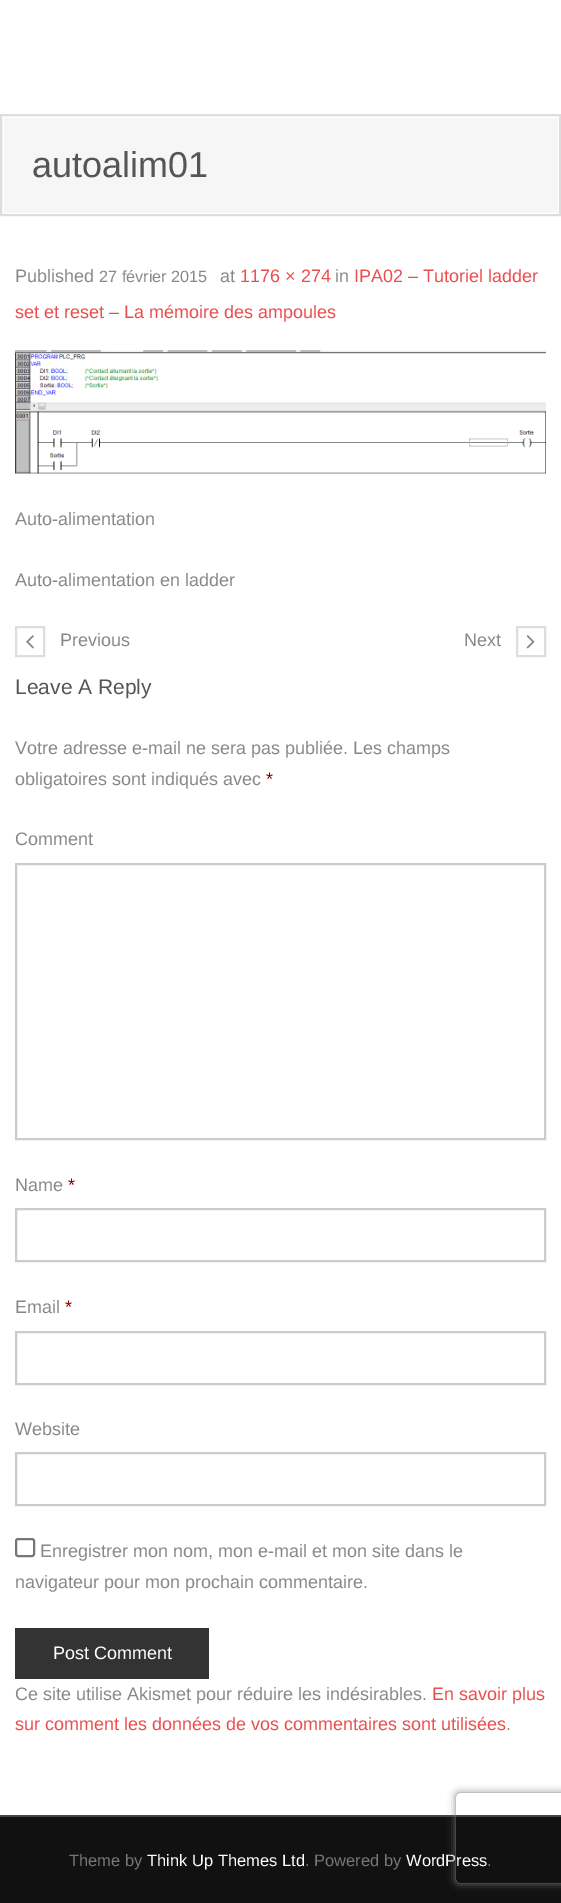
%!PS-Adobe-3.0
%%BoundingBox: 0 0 561 1903
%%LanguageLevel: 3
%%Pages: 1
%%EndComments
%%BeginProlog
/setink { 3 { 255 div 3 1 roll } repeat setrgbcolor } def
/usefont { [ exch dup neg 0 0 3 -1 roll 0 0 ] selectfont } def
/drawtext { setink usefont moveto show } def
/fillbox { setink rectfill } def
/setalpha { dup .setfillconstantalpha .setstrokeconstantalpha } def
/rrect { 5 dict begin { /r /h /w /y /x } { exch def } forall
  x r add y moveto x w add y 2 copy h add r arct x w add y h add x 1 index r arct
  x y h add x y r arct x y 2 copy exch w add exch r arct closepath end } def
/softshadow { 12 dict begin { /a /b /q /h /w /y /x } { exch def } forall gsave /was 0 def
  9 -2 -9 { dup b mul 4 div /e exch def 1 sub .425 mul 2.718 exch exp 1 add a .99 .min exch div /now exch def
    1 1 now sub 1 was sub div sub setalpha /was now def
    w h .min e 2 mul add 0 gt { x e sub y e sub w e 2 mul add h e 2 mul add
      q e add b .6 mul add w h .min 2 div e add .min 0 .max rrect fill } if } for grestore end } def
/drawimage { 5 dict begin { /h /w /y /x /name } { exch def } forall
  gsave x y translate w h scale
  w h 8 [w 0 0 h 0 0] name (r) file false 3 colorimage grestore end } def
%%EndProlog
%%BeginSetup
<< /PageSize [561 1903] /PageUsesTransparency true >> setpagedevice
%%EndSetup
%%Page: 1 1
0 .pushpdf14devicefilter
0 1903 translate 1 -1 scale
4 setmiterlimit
0 0 561 1903 255 255 255 fillbox
4 118 554 95 246 246 246 fillbox
221 221 221 setink
2 setlinewidth
1 115 559 100 rectstroke
(autoalim01) 32 177 /LiberationSans-Regular 36 85 85 85 drawtext
(Published) 15 282 /LiberationSans-Regular 18 136 136 136 drawtext
(27 février 2015) 99 282 /LiberationSans-Regular 16.25 136 136 136 drawtext
(at) 220 282 /LiberationSans-Regular 18 136 136 136 drawtext
(1176 × 274) 240 282 /LiberationSans-Regular 18 236 76 76 drawtext
(in) 335 282 /LiberationSans-Regular 18 136 136 136 drawtext
(IPA02 – Tutoriel ladder) 354 282 /LiberationSans-Regular 18 236 76 76 drawtext
(set et reset – La mémoire des ampoules) 15 318 /LiberationSans-Regular 18 236 76 76 drawtext
(assets/img1.rgb) 15 350 531 124 drawimage
(Auto-alimentation) 15 525 /LiberationSans-Regular 18 136 136 136 drawtext
(Auto-alimentation en ladder) 15 586 /LiberationSans-Regular 18 136 136 136 drawtext
221 221 221 setink
16 627 28 29 rectstroke
(assets/img2.rgb) 26 635 8 14 drawimage
(Previous) 60 646 /LiberationSans-Regular 18 136 136 136 drawtext
(Next) 464 646 /LiberationSans-Regular 18 136 136 136 drawtext
221 221 221 setink
517 627 28 29 rectstroke
(assets/img3.rgb) 526 635 9 14 drawimage
(Leave A Reply) 15 694 /LiberationSans-Regular 21 85 85 85 drawtext
(Votre adresse e-mail ne sera pas publiée. Les champs) 15 754 /LiberationSans-Regular 18 136 136 136 drawtext
(obligatoires sont indiqués avec) 15 785 /LiberationSans-Regular 18 136 136 136 drawtext
(*) 266 785 /LiberationSans-Regular 18 136 0 0 drawtext
(Comment) 15 845 /LiberationSans-Regular 18 136 136 136 drawtext
204 204 204 setink
16 864 529 275 rectstroke
(Name) 15 1191 /LiberationSans-Regular 18 136 136 136 drawtext
(*) 68 1191 /LiberationSans-Regular 18 136 0 0 drawtext
204 204 204 setink
16 1209 529 52 rectstroke
(Email) 15 1313 /LiberationSans-Regular 18 136 136 136 drawtext
(*) 65 1313 /LiberationSans-Regular 18 136 0 0 drawtext
204 204 204 setink
16 1332 529 52 rectstroke
(Website) 15 1435 /LiberationSans-Regular 18 136 136 136 drawtext
204 204 204 setink
16 1453 529 52 rectstroke
118 118 118 setink
16 1539 18 17 2 rrect stroke
(Enregistrer mon nom, mon e-mail et mon site dans le) 40 1557 /LiberationSans-Regular 18 136 136 136 drawtext
(navigateur pour mon prochain commentaire.) 15 1588 /LiberationSans-Regular 18 136 136 136 drawtext
15 1628 194 51 51 51 51 fillbox
(Post Comment) 53 1659 /LiberationSans-Regular 18 255 255 255 drawtext
(Ce site utilise Akismet pour réduire les indésirables.) 15 1700 /LiberationSans-Regular 18 136 136 136 drawtext
(En savoir plus) 432 1700 /LiberationSans-Regular 18 236 76 76 drawtext
(sur comment les données de vos commentaires sont utilisées) 15 1730 /LiberationSans-Regular 18 236 76 76 drawtext
(.) 506 1730 /LiberationSans-Regular 18 136 136 136 drawtext
0 1817 561 86 17 17 17 fillbox
0 1815 561 2 68 68 68 fillbox
(Theme by) 69 1866 /LiberationSans-Regular 16.5 119 119 119 drawtext
(Think Up Themes Ltd) 147 1866 /LiberationSans-Regular 16.5 255 255 255 drawtext
(. Powered by) 305 1866 /LiberationSans-Regular 16.5 119 119 119 drawtext
(WordPress) 406 1866 /LiberationSans-Regular 16.5 255 255 255 drawtext
(.) 487 1866 /LiberationSans-Regular 16.5 119 119 119 drawtext
gsave
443 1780 moveto 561 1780 lineto 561 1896 lineto 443 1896 lineto closepath 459 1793 moveto 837 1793 lineto 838.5 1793 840 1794.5 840 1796 curveto 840 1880 lineto 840 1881.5 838.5 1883 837 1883 curveto 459 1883 lineto 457.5 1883 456 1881.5 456 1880 curveto 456 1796 lineto 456 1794.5 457.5 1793 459 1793 curveto closepath eoclip newpath
128 128 128 setink
456 1793 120 90 3 4 1 softshadow
grestore
.poppdf14devicefilter showpage
%%EOF
